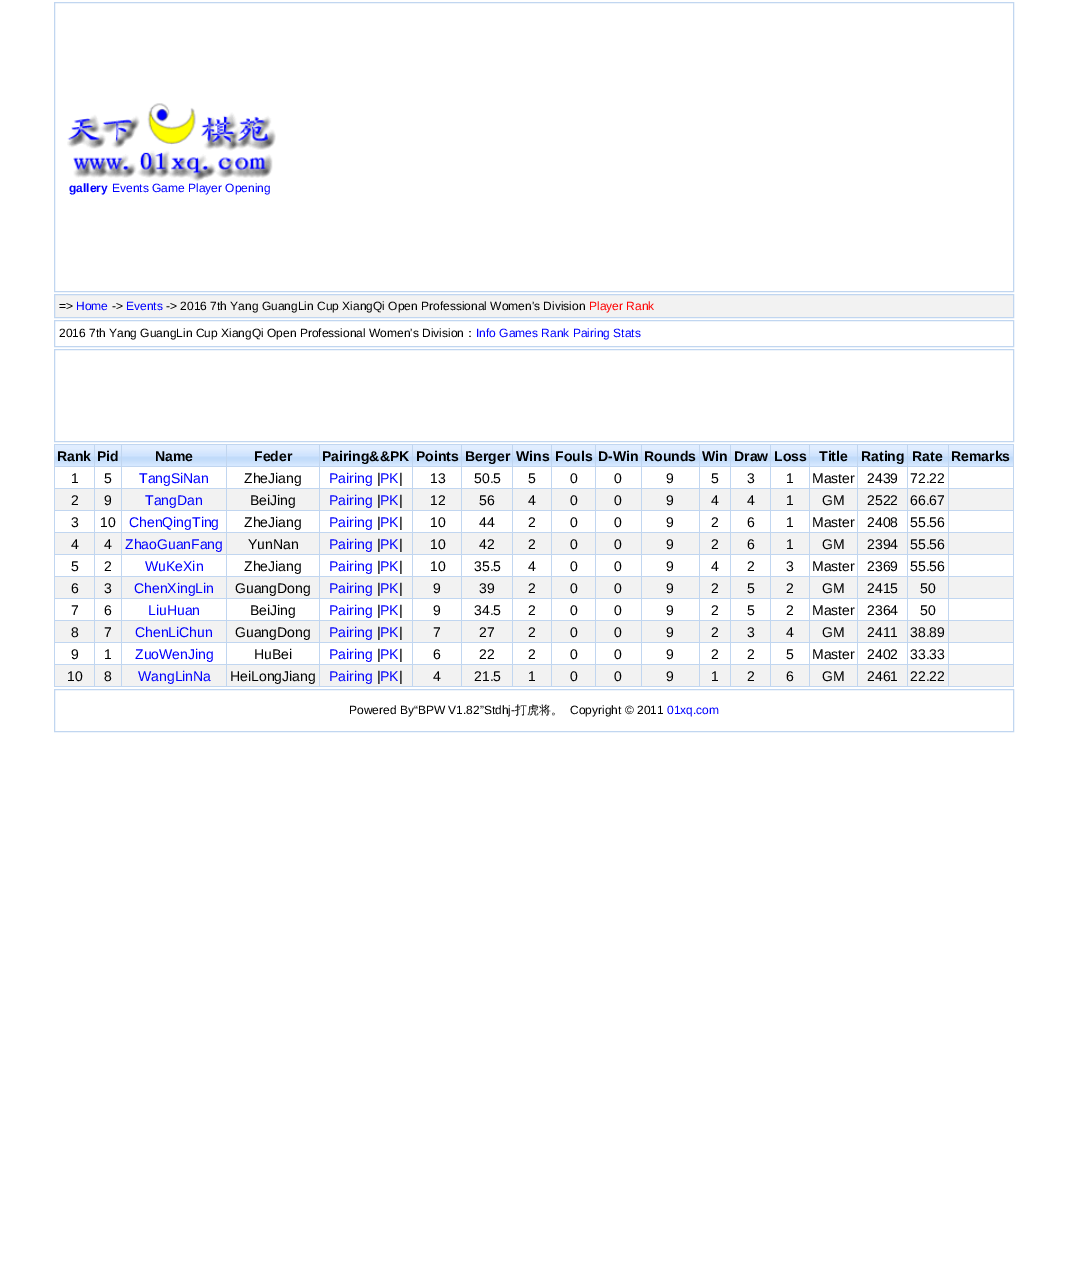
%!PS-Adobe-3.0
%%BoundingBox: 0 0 1068 1281
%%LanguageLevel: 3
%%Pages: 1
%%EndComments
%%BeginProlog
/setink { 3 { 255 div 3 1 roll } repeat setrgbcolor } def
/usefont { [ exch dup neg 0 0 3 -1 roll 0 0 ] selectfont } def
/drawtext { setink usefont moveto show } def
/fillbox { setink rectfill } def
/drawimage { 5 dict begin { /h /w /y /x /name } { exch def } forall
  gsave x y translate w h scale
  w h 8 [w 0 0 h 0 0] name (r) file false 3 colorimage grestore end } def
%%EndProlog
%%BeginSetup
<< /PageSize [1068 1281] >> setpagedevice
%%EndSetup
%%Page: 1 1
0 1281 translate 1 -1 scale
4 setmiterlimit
0 0 1068 1281 255 255 255 fillbox
193 214 240 setink
54.5 2.5 959 289 rectstroke
(assets/img1.rgb) 67 103 209 78 drawimage
(gallery) 69 192 /LiberationSans-Bold 12 0 0 255 drawtext
(Events Game Player Opening) 112 192 /LiberationSans-Regular 12 0 0 255 drawtext
242 242 242 setink
54.5 294.5 moveto 1013.5 294.5 lineto 1013.5 317.5 lineto 54.5 317.5 lineto closepath gsave fill grestore
193 214 240 setink
stroke
(=>) 59 310 /LiberationSans-Regular 12 0 0 0 drawtext
(Home) 76 310 /LiberationSans-Regular 12 0 0 255 drawtext
(->) 112 310 /LiberationSans-Regular 12 0 0 0 drawtext
(Events) 126 310 /LiberationSans-Regular 12 0 0 255 drawtext
(-> 2016 7th Yang GuangLin Cup XiangQi Open Professional Women's Division) 166 310 /LiberationSans-Regular 12 0 0 0 drawtext
(Player Rank) 589 310 /LiberationSans-Regular 12 255 0 0 drawtext
193 214 240 setink
54.5 320.5 959 26 rectstroke
(2016 7th Yang GuangLin Cup XiangQi Open Professional Women's Division) 59 337 /LiberationSans-Regular 12 0 0 0 drawtext
(：) 464 337 /WenQuanYiZenHei-Medium 12 0 0 0 drawtext
(Info Games Rank Pairing Stats) 476 337 /LiberationSans-Regular 12 0 0 255 drawtext
193 214 240 setink
54.5 349.5 959 92 rectstroke
54 444 960 1 193 214 240 fillbox
1013 444 1 243 193 214 240 fillbox
54 686 960 1 193 214 240 fillbox
54 444 1 243 193 214 240 fillbox
(assets/img2.rgb) 55 445 39 21 drawimage
(Rank) 57 461 /LiberationSans-Bold 14 0 0 0 drawtext
(assets/img3.rgb) 95 445 26 21 drawimage
948 466 66 1 193 214 240 fillbox
948 488 66 1 193 214 240 fillbox
55 489 958 21 242 242 242 fillbox
948 510 66 1 193 214 240 fillbox
948 532 66 1 193 214 240 fillbox
55 533 958 21 242 242 242 fillbox
948 554 66 1 193 214 240 fillbox
948 576 66 1 193 214 240 fillbox
55 577 958 21 242 242 242 fillbox
948 598 66 1 193 214 240 fillbox
948 620 66 1 193 214 240 fillbox
55 621 958 21 242 242 242 fillbox
948 642 66 1 193 214 240 fillbox
948 664 66 1 193 214 240 fillbox
55 665 958 21 242 242 242 fillbox
948 664 1 23 193 214 240 fillbox
907 664 42 1 193 214 240 fillbox
948 642 1 23 193 214 240 fillbox
907 642 42 1 193 214 240 fillbox
948 620 1 23 193 214 240 fillbox
907 620 42 1 193 214 240 fillbox
948 598 1 23 193 214 240 fillbox
907 598 42 1 193 214 240 fillbox
948 576 1 23 193 214 240 fillbox
907 576 42 1 193 214 240 fillbox
948 554 1 23 193 214 240 fillbox
907 554 42 1 193 214 240 fillbox
948 532 1 23 193 214 240 fillbox
907 532 42 1 193 214 240 fillbox
948 510 1 23 193 214 240 fillbox
907 510 42 1 193 214 240 fillbox
948 488 1 23 193 214 240 fillbox
907 488 42 1 193 214 240 fillbox
948 466 1 23 193 214 240 fillbox
907 466 42 1 193 214 240 fillbox
907 664 1 23 193 214 240 fillbox
857 664 51 1 193 214 240 fillbox
907 642 1 23 193 214 240 fillbox
857 642 51 1 193 214 240 fillbox
907 620 1 23 193 214 240 fillbox
857 620 51 1 193 214 240 fillbox
907 598 1 23 193 214 240 fillbox
857 598 51 1 193 214 240 fillbox
907 576 1 23 193 214 240 fillbox
857 576 51 1 193 214 240 fillbox
907 554 1 23 193 214 240 fillbox
857 554 51 1 193 214 240 fillbox
907 532 1 23 193 214 240 fillbox
857 532 51 1 193 214 240 fillbox
907 510 1 23 193 214 240 fillbox
857 510 51 1 193 214 240 fillbox
907 488 1 23 193 214 240 fillbox
857 488 51 1 193 214 240 fillbox
907 466 1 23 193 214 240 fillbox
857 466 51 1 193 214 240 fillbox
857 664 1 23 193 214 240 fillbox
809 664 49 1 193 214 240 fillbox
857 642 1 23 193 214 240 fillbox
809 642 49 1 193 214 240 fillbox
857 620 1 23 193 214 240 fillbox
809 620 49 1 193 214 240 fillbox
857 598 1 23 193 214 240 fillbox
809 598 49 1 193 214 240 fillbox
857 576 1 23 193 214 240 fillbox
809 576 49 1 193 214 240 fillbox
857 554 1 23 193 214 240 fillbox
809 554 49 1 193 214 240 fillbox
857 532 1 23 193 214 240 fillbox
809 532 49 1 193 214 240 fillbox
857 510 1 23 193 214 240 fillbox
809 510 49 1 193 214 240 fillbox
857 488 1 23 193 214 240 fillbox
809 488 49 1 193 214 240 fillbox
857 466 1 23 193 214 240 fillbox
809 466 49 1 193 214 240 fillbox
809 664 1 23 193 214 240 fillbox
770 664 40 1 193 214 240 fillbox
809 642 1 23 193 214 240 fillbox
770 642 40 1 193 214 240 fillbox
809 620 1 23 193 214 240 fillbox
770 620 40 1 193 214 240 fillbox
809 598 1 23 193 214 240 fillbox
770 598 40 1 193 214 240 fillbox
809 576 1 23 193 214 240 fillbox
770 576 40 1 193 214 240 fillbox
809 554 1 23 193 214 240 fillbox
770 554 40 1 193 214 240 fillbox
809 532 1 23 193 214 240 fillbox
770 532 40 1 193 214 240 fillbox
809 510 1 23 193 214 240 fillbox
770 510 40 1 193 214 240 fillbox
809 488 1 23 193 214 240 fillbox
770 488 40 1 193 214 240 fillbox
809 466 1 23 193 214 240 fillbox
770 466 40 1 193 214 240 fillbox
770 664 1 23 193 214 240 fillbox
730 664 41 1 193 214 240 fillbox
770 642 1 23 193 214 240 fillbox
730 642 41 1 193 214 240 fillbox
770 620 1 23 193 214 240 fillbox
730 620 41 1 193 214 240 fillbox
770 598 1 23 193 214 240 fillbox
730 598 41 1 193 214 240 fillbox
770 576 1 23 193 214 240 fillbox
730 576 41 1 193 214 240 fillbox
770 554 1 23 193 214 240 fillbox
730 554 41 1 193 214 240 fillbox
770 532 1 23 193 214 240 fillbox
730 532 41 1 193 214 240 fillbox
770 510 1 23 193 214 240 fillbox
730 510 41 1 193 214 240 fillbox
770 488 1 23 193 214 240 fillbox
730 488 41 1 193 214 240 fillbox
770 466 1 23 193 214 240 fillbox
730 466 41 1 193 214 240 fillbox
730 664 1 23 193 214 240 fillbox
699 664 32 1 193 214 240 fillbox
730 642 1 23 193 214 240 fillbox
699 642 32 1 193 214 240 fillbox
730 620 1 23 193 214 240 fillbox
699 620 32 1 193 214 240 fillbox
730 598 1 23 193 214 240 fillbox
699 598 32 1 193 214 240 fillbox
730 576 1 23 193 214 240 fillbox
699 576 32 1 193 214 240 fillbox
730 554 1 23 193 214 240 fillbox
699 554 32 1 193 214 240 fillbox
730 532 1 23 193 214 240 fillbox
699 532 32 1 193 214 240 fillbox
730 510 1 23 193 214 240 fillbox
699 510 32 1 193 214 240 fillbox
730 488 1 23 193 214 240 fillbox
699 488 32 1 193 214 240 fillbox
730 466 1 23 193 214 240 fillbox
699 466 32 1 193 214 240 fillbox
699 664 1 23 193 214 240 fillbox
641 664 59 1 193 214 240 fillbox
699 642 1 23 193 214 240 fillbox
641 642 59 1 193 214 240 fillbox
699 620 1 23 193 214 240 fillbox
641 620 59 1 193 214 240 fillbox
699 598 1 23 193 214 240 fillbox
641 598 59 1 193 214 240 fillbox
699 576 1 23 193 214 240 fillbox
641 576 59 1 193 214 240 fillbox
699 554 1 23 193 214 240 fillbox
641 554 59 1 193 214 240 fillbox
699 532 1 23 193 214 240 fillbox
641 532 59 1 193 214 240 fillbox
699 510 1 23 193 214 240 fillbox
641 510 59 1 193 214 240 fillbox
699 488 1 23 193 214 240 fillbox
641 488 59 1 193 214 240 fillbox
699 466 1 23 193 214 240 fillbox
641 466 59 1 193 214 240 fillbox
641 664 1 23 193 214 240 fillbox
595 664 47 1 193 214 240 fillbox
641 642 1 23 193 214 240 fillbox
595 642 47 1 193 214 240 fillbox
641 620 1 23 193 214 240 fillbox
595 620 47 1 193 214 240 fillbox
641 598 1 23 193 214 240 fillbox
595 598 47 1 193 214 240 fillbox
641 576 1 23 193 214 240 fillbox
595 576 47 1 193 214 240 fillbox
641 554 1 23 193 214 240 fillbox
595 554 47 1 193 214 240 fillbox
641 532 1 23 193 214 240 fillbox
595 532 47 1 193 214 240 fillbox
641 510 1 23 193 214 240 fillbox
595 510 47 1 193 214 240 fillbox
641 488 1 23 193 214 240 fillbox
595 488 47 1 193 214 240 fillbox
641 466 1 23 193 214 240 fillbox
595 466 47 1 193 214 240 fillbox
595 664 1 23 193 214 240 fillbox
551 664 45 1 193 214 240 fillbox
595 642 1 23 193 214 240 fillbox
551 642 45 1 193 214 240 fillbox
595 620 1 23 193 214 240 fillbox
551 620 45 1 193 214 240 fillbox
595 598 1 23 193 214 240 fillbox
551 598 45 1 193 214 240 fillbox
595 576 1 23 193 214 240 fillbox
551 576 45 1 193 214 240 fillbox
595 554 1 23 193 214 240 fillbox
551 554 45 1 193 214 240 fillbox
595 532 1 23 193 214 240 fillbox
551 532 45 1 193 214 240 fillbox
595 510 1 23 193 214 240 fillbox
551 510 45 1 193 214 240 fillbox
595 488 1 23 193 214 240 fillbox
551 488 45 1 193 214 240 fillbox
595 466 1 23 193 214 240 fillbox
551 466 45 1 193 214 240 fillbox
551 664 1 23 193 214 240 fillbox
512 664 40 1 193 214 240 fillbox
551 642 1 23 193 214 240 fillbox
512 642 40 1 193 214 240 fillbox
551 620 1 23 193 214 240 fillbox
512 620 40 1 193 214 240 fillbox
551 598 1 23 193 214 240 fillbox
512 598 40 1 193 214 240 fillbox
551 576 1 23 193 214 240 fillbox
512 576 40 1 193 214 240 fillbox
551 554 1 23 193 214 240 fillbox
512 554 40 1 193 214 240 fillbox
551 532 1 23 193 214 240 fillbox
512 532 40 1 193 214 240 fillbox
551 510 1 23 193 214 240 fillbox
512 510 40 1 193 214 240 fillbox
551 488 1 23 193 214 240 fillbox
512 488 40 1 193 214 240 fillbox
551 466 1 23 193 214 240 fillbox
512 466 40 1 193 214 240 fillbox
512 664 1 23 193 214 240 fillbox
461 664 52 1 193 214 240 fillbox
512 642 1 23 193 214 240 fillbox
461 642 52 1 193 214 240 fillbox
512 620 1 23 193 214 240 fillbox
461 620 52 1 193 214 240 fillbox
512 598 1 23 193 214 240 fillbox
461 598 52 1 193 214 240 fillbox
512 576 1 23 193 214 240 fillbox
461 576 52 1 193 214 240 fillbox
512 554 1 23 193 214 240 fillbox
461 554 52 1 193 214 240 fillbox
512 532 1 23 193 214 240 fillbox
461 532 52 1 193 214 240 fillbox
512 510 1 23 193 214 240 fillbox
461 510 52 1 193 214 240 fillbox
512 488 1 23 193 214 240 fillbox
461 488 52 1 193 214 240 fillbox
512 466 1 23 193 214 240 fillbox
461 466 52 1 193 214 240 fillbox
461 664 1 23 193 214 240 fillbox
412 664 50 1 193 214 240 fillbox
461 642 1 23 193 214 240 fillbox
412 642 50 1 193 214 240 fillbox
461 620 1 23 193 214 240 fillbox
412 620 50 1 193 214 240 fillbox
461 598 1 23 193 214 240 fillbox
412 598 50 1 193 214 240 fillbox
461 576 1 23 193 214 240 fillbox
412 576 50 1 193 214 240 fillbox
461 554 1 23 193 214 240 fillbox
412 554 50 1 193 214 240 fillbox
461 532 1 23 193 214 240 fillbox
412 532 50 1 193 214 240 fillbox
461 510 1 23 193 214 240 fillbox
412 510 50 1 193 214 240 fillbox
461 488 1 23 193 214 240 fillbox
412 488 50 1 193 214 240 fillbox
461 466 1 23 193 214 240 fillbox
412 466 50 1 193 214 240 fillbox
412 664 1 23 193 214 240 fillbox
319 664 94 1 193 214 240 fillbox
412 642 1 23 193 214 240 fillbox
319 642 94 1 193 214 240 fillbox
412 620 1 23 193 214 240 fillbox
319 620 94 1 193 214 240 fillbox
412 598 1 23 193 214 240 fillbox
319 598 94 1 193 214 240 fillbox
412 576 1 23 193 214 240 fillbox
319 576 94 1 193 214 240 fillbox
412 554 1 23 193 214 240 fillbox
319 554 94 1 193 214 240 fillbox
412 532 1 23 193 214 240 fillbox
319 532 94 1 193 214 240 fillbox
412 510 1 23 193 214 240 fillbox
319 510 94 1 193 214 240 fillbox
412 488 1 23 193 214 240 fillbox
319 488 94 1 193 214 240 fillbox
412 466 1 23 193 214 240 fillbox
319 466 94 1 193 214 240 fillbox
319 664 1 23 193 214 240 fillbox
226 664 94 1 193 214 240 fillbox
319 642 1 23 193 214 240 fillbox
226 642 94 1 193 214 240 fillbox
319 620 1 23 193 214 240 fillbox
226 620 94 1 193 214 240 fillbox
319 598 1 23 193 214 240 fillbox
226 598 94 1 193 214 240 fillbox
319 576 1 23 193 214 240 fillbox
226 576 94 1 193 214 240 fillbox
319 554 1 23 193 214 240 fillbox
226 554 94 1 193 214 240 fillbox
319 532 1 23 193 214 240 fillbox
226 532 94 1 193 214 240 fillbox
319 510 1 23 193 214 240 fillbox
226 510 94 1 193 214 240 fillbox
319 488 1 23 193 214 240 fillbox
226 488 94 1 193 214 240 fillbox
319 466 1 23 193 214 240 fillbox
226 466 94 1 193 214 240 fillbox
226 664 1 23 193 214 240 fillbox
121 664 106 1 193 214 240 fillbox
226 642 1 23 193 214 240 fillbox
121 642 106 1 193 214 240 fillbox
226 620 1 23 193 214 240 fillbox
121 620 106 1 193 214 240 fillbox
226 598 1 23 193 214 240 fillbox
121 598 106 1 193 214 240 fillbox
226 576 1 23 193 214 240 fillbox
121 576 106 1 193 214 240 fillbox
226 554 1 23 193 214 240 fillbox
121 554 106 1 193 214 240 fillbox
226 532 1 23 193 214 240 fillbox
121 532 106 1 193 214 240 fillbox
226 510 1 23 193 214 240 fillbox
121 510 106 1 193 214 240 fillbox
226 488 1 23 193 214 240 fillbox
121 488 106 1 193 214 240 fillbox
226 466 1 23 193 214 240 fillbox
121 466 106 1 193 214 240 fillbox
121 664 1 23 193 214 240 fillbox
94 664 28 1 193 214 240 fillbox
121 642 1 23 193 214 240 fillbox
94 642 28 1 193 214 240 fillbox
121 620 1 23 193 214 240 fillbox
94 620 28 1 193 214 240 fillbox
121 598 1 23 193 214 240 fillbox
94 598 28 1 193 214 240 fillbox
121 576 1 23 193 214 240 fillbox
94 576 28 1 193 214 240 fillbox
121 554 1 23 193 214 240 fillbox
94 554 28 1 193 214 240 fillbox
121 532 1 23 193 214 240 fillbox
94 532 28 1 193 214 240 fillbox
121 510 1 23 193 214 240 fillbox
94 510 28 1 193 214 240 fillbox
121 488 1 23 193 214 240 fillbox
94 488 28 1 193 214 240 fillbox
121 466 1 23 193 214 240 fillbox
94 466 28 1 193 214 240 fillbox
94 664 1 23 193 214 240 fillbox
54 664 41 1 193 214 240 fillbox
94 642 1 23 193 214 240 fillbox
54 642 41 1 193 214 240 fillbox
94 620 1 23 193 214 240 fillbox
54 620 41 1 193 214 240 fillbox
94 598 1 23 193 214 240 fillbox
54 598 41 1 193 214 240 fillbox
94 576 1 23 193 214 240 fillbox
54 576 41 1 193 214 240 fillbox
94 554 1 23 193 214 240 fillbox
54 554 41 1 193 214 240 fillbox
94 532 1 23 193 214 240 fillbox
54 532 41 1 193 214 240 fillbox
94 510 1 23 193 214 240 fillbox
54 510 41 1 193 214 240 fillbox
94 488 1 23 193 214 240 fillbox
54 488 41 1 193 214 240 fillbox
94 466 1 23 193 214 240 fillbox
54 466 41 1 193 214 240 fillbox
94 444 1 23 193 214 240 fillbox
(Pid) 97 461 /LiberationSans-Bold 14 0 0 0 drawtext
(assets/img4.rgb) 122 445 104 21 drawimage
121 444 1 23 193 214 240 fillbox
(Name) 155 461 /LiberationSans-Bold 14 0 0 0 drawtext
(assets/img5.rgb) 227 445 92 21 drawimage
226 444 1 23 193 214 240 fillbox
(Feder) 254 461 /LiberationSans-Bold 14 0 0 0 drawtext
(assets/img5.rgb) 320 445 92 21 drawimage
319 444 1 23 193 214 240 fillbox
(Pairing&&PK) 322 461 /LiberationSans-Bold 14 0 0 0 drawtext
(assets/img6.rgb) 413 445 48 21 drawimage
412 444 1 23 193 214 240 fillbox
(Points) 416 461 /LiberationSans-Bold 14 0 0 0 drawtext
(assets/img7.rgb) 462 445 50 21 drawimage
461 444 1 23 193 214 240 fillbox
(Berger) 465 461 /LiberationSans-Bold 14 0 0 0 drawtext
(assets/img8.rgb) 513 445 38 21 drawimage
512 444 1 23 193 214 240 fillbox
(Wins) 516 461 /LiberationSans-Bold 14 0 0 0 drawtext
(assets/img9.rgb) 552 445 43 21 drawimage
551 444 1 23 193 214 240 fillbox
(Fouls) 555 461 /LiberationSans-Bold 14 0 0 0 drawtext
(assets/img10.rgb) 596 445 45 21 drawimage
595 444 1 23 193 214 240 fillbox
(D-Win) 598 461 /LiberationSans-Bold 14 0 0 0 drawtext
(assets/img11.rgb) 642 445 57 21 drawimage
641 444 1 23 193 214 240 fillbox
(Rounds) 644 461 /LiberationSans-Bold 14 0 0 0 drawtext
(assets/img12.rgb) 700 445 30 21 drawimage
699 444 1 23 193 214 240 fillbox
(Win) 702 461 /LiberationSans-Bold 14 0 0 0 drawtext
(assets/img2.rgb) 731 445 39 21 drawimage
730 444 1 23 193 214 240 fillbox
(Draw) 734 461 /LiberationSans-Bold 14 0 0 0 drawtext
(assets/img8.rgb) 771 445 38 21 drawimage
770 444 1 23 193 214 240 fillbox
(Loss) 774 461 /LiberationSans-Bold 14 0 0 0 drawtext
(assets/img13.rgb) 810 445 47 21 drawimage
809 444 1 23 193 214 240 fillbox
(Title) 819 461 /LiberationSans-Bold 14 0 0 0 drawtext
(assets/img14.rgb) 858 445 49 21 drawimage
857 444 1 23 193 214 240 fillbox
(Rating) 861 461 /LiberationSans-Bold 14 0 0 0 drawtext
(assets/img15.rgb) 908 445 40 21 drawimage
907 444 1 23 193 214 240 fillbox
(Rate) 912 461 /LiberationSans-Bold 14 0 0 0 drawtext
(assets/img16.rgb) 949 445 64 21 drawimage
948 444 1 23 193 214 240 fillbox
(Remarks) 951 461 /LiberationSans-Bold 14 0 0 0 drawtext
(1) 71 483 /LiberationSans-Regular 14 0 0 0 drawtext
(5) 104 483 /LiberationSans-Regular 14 0 0 0 drawtext
(TangSiNan) 139 483 /LiberationSans-Regular 14 0 0 255 drawtext
(ZheJiang) 244 483 /LiberationSans-Regular 14 0 0 0 drawtext
(Pairing) 329 483 /LiberationSans-Regular 14 0 0 255 drawtext
(|) 377 483 /LiberationSans-Regular 14 0 0 0 drawtext
(PK) 380 483 /LiberationSans-Regular 14 0 0 255 drawtext
(|) 399 483 /LiberationSans-Regular 14 0 0 0 drawtext
(13) 430 483 /LiberationSans-Regular 14 0 0 0 drawtext
(50.5) 474 483 /LiberationSans-Regular 14 0 0 0 drawtext
(5) 528 483 /LiberationSans-Regular 14 0 0 0 drawtext
(0) 570 483 /LiberationSans-Regular 14 0 0 0 drawtext
(0) 614 483 /LiberationSans-Regular 14 0 0 0 drawtext
(9) 666 483 /LiberationSans-Regular 14 0 0 0 drawtext
(5) 711 483 /LiberationSans-Regular 14 0 0 0 drawtext
(3) 747 483 /LiberationSans-Regular 14 0 0 0 drawtext
(1) 786 483 /LiberationSans-Regular 14 0 0 0 drawtext
(Master) 812 483 /LiberationSans-Regular 14 0 0 0 drawtext
(2439) 867 483 /LiberationSans-Regular 14 0 0 0 drawtext
(72.22) 910 483 /LiberationSans-Regular 14 0 0 0 drawtext
(2) 71 505 /LiberationSans-Regular 14 0 0 0 drawtext
(9) 104 505 /LiberationSans-Regular 14 0 0 0 drawtext
(TangDan) 145 505 /LiberationSans-Regular 14 0 0 255 drawtext
(BeiJing) 250 505 /LiberationSans-Regular 14 0 0 0 drawtext
(Pairing) 329 505 /LiberationSans-Regular 14 0 0 255 drawtext
(|) 377 505 /LiberationSans-Regular 14 0 0 0 drawtext
(PK) 380 505 /LiberationSans-Regular 14 0 0 255 drawtext
(|) 399 505 /LiberationSans-Regular 14 0 0 0 drawtext
(12) 430 505 /LiberationSans-Regular 14 0 0 0 drawtext
(56) 479 505 /LiberationSans-Regular 14 0 0 0 drawtext
(4) 528 505 /LiberationSans-Regular 14 0 0 0 drawtext
(0) 570 505 /LiberationSans-Regular 14 0 0 0 drawtext
(0) 614 505 /LiberationSans-Regular 14 0 0 0 drawtext
(9) 666 505 /LiberationSans-Regular 14 0 0 0 drawtext
(4) 711 505 /LiberationSans-Regular 14 0 0 0 drawtext
(4) 747 505 /LiberationSans-Regular 14 0 0 0 drawtext
(1) 786 505 /LiberationSans-Regular 14 0 0 0 drawtext
(GM) 822 505 /LiberationSans-Regular 14 0 0 0 drawtext
(2522) 867 505 /LiberationSans-Regular 14 0 0 0 drawtext
(66.67) 910 505 /LiberationSans-Regular 14 0 0 0 drawtext
(3) 71 527 /LiberationSans-Regular 14 0 0 0 drawtext
(10) 100 527 /LiberationSans-Regular 14 0 0 0 drawtext
(ChenQingTing) 129 527 /LiberationSans-Regular 14 0 0 255 drawtext
(ZheJiang) 244 527 /LiberationSans-Regular 14 0 0 0 drawtext
(Pairing) 329 527 /LiberationSans-Regular 14 0 0 255 drawtext
(|) 377 527 /LiberationSans-Regular 14 0 0 0 drawtext
(PK) 380 527 /LiberationSans-Regular 14 0 0 255 drawtext
(|) 399 527 /LiberationSans-Regular 14 0 0 0 drawtext
(10) 430 527 /LiberationSans-Regular 14 0 0 0 drawtext
(44) 479 527 /LiberationSans-Regular 14 0 0 0 drawtext
(2) 528 527 /LiberationSans-Regular 14 0 0 0 drawtext
(0) 570 527 /LiberationSans-Regular 14 0 0 0 drawtext
(0) 614 527 /LiberationSans-Regular 14 0 0 0 drawtext
(9) 666 527 /LiberationSans-Regular 14 0 0 0 drawtext
(2) 711 527 /LiberationSans-Regular 14 0 0 0 drawtext
(6) 747 527 /LiberationSans-Regular 14 0 0 0 drawtext
(1) 786 527 /LiberationSans-Regular 14 0 0 0 drawtext
(Master) 812 527 /LiberationSans-Regular 14 0 0 0 drawtext
(2408) 867 527 /LiberationSans-Regular 14 0 0 0 drawtext
(55.56) 910 527 /LiberationSans-Regular 14 0 0 0 drawtext
(4) 71 549 /LiberationSans-Regular 14 0 0 0 drawtext
(4) 104 549 /LiberationSans-Regular 14 0 0 0 drawtext
(ZhaoGuanFang) 125 549 /LiberationSans-Regular 14 0 0 255 drawtext
(YunNan) 248 549 /LiberationSans-Regular 14 0 0 0 drawtext
(Pairing) 329 549 /LiberationSans-Regular 14 0 0 255 drawtext
(|) 377 549 /LiberationSans-Regular 14 0 0 0 drawtext
(PK) 380 549 /LiberationSans-Regular 14 0 0 255 drawtext
(|) 399 549 /LiberationSans-Regular 14 0 0 0 drawtext
(10) 430 549 /LiberationSans-Regular 14 0 0 0 drawtext
(42) 479 549 /LiberationSans-Regular 14 0 0 0 drawtext
(2) 528 549 /LiberationSans-Regular 14 0 0 0 drawtext
(0) 570 549 /LiberationSans-Regular 14 0 0 0 drawtext
(0) 614 549 /LiberationSans-Regular 14 0 0 0 drawtext
(9) 666 549 /LiberationSans-Regular 14 0 0 0 drawtext
(2) 711 549 /LiberationSans-Regular 14 0 0 0 drawtext
(6) 747 549 /LiberationSans-Regular 14 0 0 0 drawtext
(1) 786 549 /LiberationSans-Regular 14 0 0 0 drawtext
(GM) 822 549 /LiberationSans-Regular 14 0 0 0 drawtext
(2394) 867 549 /LiberationSans-Regular 14 0 0 0 drawtext
(55.56) 910 549 /LiberationSans-Regular 14 0 0 0 drawtext
(5) 71 571 /LiberationSans-Regular 14 0 0 0 drawtext
(2) 104 571 /LiberationSans-Regular 14 0 0 0 drawtext
(WuKeXin) 145 571 /LiberationSans-Regular 14 0 0 255 drawtext
(ZheJiang) 244 571 /LiberationSans-Regular 14 0 0 0 drawtext
(Pairing) 329 571 /LiberationSans-Regular 14 0 0 255 drawtext
(|) 377 571 /LiberationSans-Regular 14 0 0 0 drawtext
(PK) 380 571 /LiberationSans-Regular 14 0 0 255 drawtext
(|) 399 571 /LiberationSans-Regular 14 0 0 0 drawtext
(10) 430 571 /LiberationSans-Regular 14 0 0 0 drawtext
(35.5) 474 571 /LiberationSans-Regular 14 0 0 0 drawtext
(4) 528 571 /LiberationSans-Regular 14 0 0 0 drawtext
(0) 570 571 /LiberationSans-Regular 14 0 0 0 drawtext
(0) 614 571 /LiberationSans-Regular 14 0 0 0 drawtext
(9) 666 571 /LiberationSans-Regular 14 0 0 0 drawtext
(4) 711 571 /LiberationSans-Regular 14 0 0 0 drawtext
(2) 747 571 /LiberationSans-Regular 14 0 0 0 drawtext
(3) 786 571 /LiberationSans-Regular 14 0 0 0 drawtext
(Master) 812 571 /LiberationSans-Regular 14 0 0 0 drawtext
(2369) 867 571 /LiberationSans-Regular 14 0 0 0 drawtext
(55.56) 910 571 /LiberationSans-Regular 14 0 0 0 drawtext
(6) 71 593 /LiberationSans-Regular 14 0 0 0 drawtext
(3) 104 593 /LiberationSans-Regular 14 0 0 0 drawtext
(ChenXingLin) 134 593 /LiberationSans-Regular 14 0 0 255 drawtext
(GuangDong) 235 593 /LiberationSans-Regular 14 0 0 0 drawtext
(Pairing) 329 593 /LiberationSans-Regular 14 0 0 255 drawtext
(|) 377 593 /LiberationSans-Regular 14 0 0 0 drawtext
(PK) 380 593 /LiberationSans-Regular 14 0 0 255 drawtext
(|) 399 593 /LiberationSans-Regular 14 0 0 0 drawtext
(9) 433 593 /LiberationSans-Regular 14 0 0 0 drawtext
(39) 479 593 /LiberationSans-Regular 14 0 0 0 drawtext
(2) 528 593 /LiberationSans-Regular 14 0 0 0 drawtext
(0) 570 593 /LiberationSans-Regular 14 0 0 0 drawtext
(0) 614 593 /LiberationSans-Regular 14 0 0 0 drawtext
(9) 666 593 /LiberationSans-Regular 14 0 0 0 drawtext
(2) 711 593 /LiberationSans-Regular 14 0 0 0 drawtext
(5) 747 593 /LiberationSans-Regular 14 0 0 0 drawtext
(2) 786 593 /LiberationSans-Regular 14 0 0 0 drawtext
(GM) 822 593 /LiberationSans-Regular 14 0 0 0 drawtext
(2415) 867 593 /LiberationSans-Regular 14 0 0 0 drawtext
(50) 920 593 /LiberationSans-Regular 14 0 0 0 drawtext
(7) 71 615 /LiberationSans-Regular 14 0 0 0 drawtext
(6) 104 615 /LiberationSans-Regular 14 0 0 0 drawtext
(LiuHuan) 148 615 /LiberationSans-Regular 14 0 0 255 drawtext
(BeiJing) 250 615 /LiberationSans-Regular 14 0 0 0 drawtext
(Pairing) 329 615 /LiberationSans-Regular 14 0 0 255 drawtext
(|) 377 615 /LiberationSans-Regular 14 0 0 0 drawtext
(PK) 380 615 /LiberationSans-Regular 14 0 0 255 drawtext
(|) 399 615 /LiberationSans-Regular 14 0 0 0 drawtext
(9) 433 615 /LiberationSans-Regular 14 0 0 0 drawtext
(34.5) 474 615 /LiberationSans-Regular 14 0 0 0 drawtext
(2) 528 615 /LiberationSans-Regular 14 0 0 0 drawtext
(0) 570 615 /LiberationSans-Regular 14 0 0 0 drawtext
(0) 614 615 /LiberationSans-Regular 14 0 0 0 drawtext
(9) 666 615 /LiberationSans-Regular 14 0 0 0 drawtext
(2) 711 615 /LiberationSans-Regular 14 0 0 0 drawtext
(5) 747 615 /LiberationSans-Regular 14 0 0 0 drawtext
(2) 786 615 /LiberationSans-Regular 14 0 0 0 drawtext
(Master) 812 615 /LiberationSans-Regular 14 0 0 0 drawtext
(2364) 867 615 /LiberationSans-Regular 14 0 0 0 drawtext
(50) 920 615 /LiberationSans-Regular 14 0 0 0 drawtext
(8) 71 637 /LiberationSans-Regular 14 0 0 0 drawtext
(7) 104 637 /LiberationSans-Regular 14 0 0 0 drawtext
(ChenLiChun) 135 637 /LiberationSans-Regular 14 0 0 255 drawtext
(GuangDong) 235 637 /LiberationSans-Regular 14 0 0 0 drawtext
(Pairing) 329 637 /LiberationSans-Regular 14 0 0 255 drawtext
(|) 377 637 /LiberationSans-Regular 14 0 0 0 drawtext
(PK) 380 637 /LiberationSans-Regular 14 0 0 255 drawtext
(|) 399 637 /LiberationSans-Regular 14 0 0 0 drawtext
(7) 433 637 /LiberationSans-Regular 14 0 0 0 drawtext
(27) 479 637 /LiberationSans-Regular 14 0 0 0 drawtext
(2) 528 637 /LiberationSans-Regular 14 0 0 0 drawtext
(0) 570 637 /LiberationSans-Regular 14 0 0 0 drawtext
(0) 614 637 /LiberationSans-Regular 14 0 0 0 drawtext
(9) 666 637 /LiberationSans-Regular 14 0 0 0 drawtext
(2) 711 637 /LiberationSans-Regular 14 0 0 0 drawtext
(3) 747 637 /LiberationSans-Regular 14 0 0 0 drawtext
(4) 786 637 /LiberationSans-Regular 14 0 0 0 drawtext
(GM) 822 637 /LiberationSans-Regular 14 0 0 0 drawtext
(2411) 867 637 /LiberationSans-Regular 14 0 0 0 drawtext
(38.89) 910 637 /LiberationSans-Regular 14 0 0 0 drawtext
(9) 71 659 /LiberationSans-Regular 14 0 0 0 drawtext
(1) 104 659 /LiberationSans-Regular 14 0 0 0 drawtext
(ZuoWenJing) 135 659 /LiberationSans-Regular 14 0 0 255 drawtext
(HuBei) 254 659 /LiberationSans-Regular 14 0 0 0 drawtext
(Pairing) 329 659 /LiberationSans-Regular 14 0 0 255 drawtext
(|) 377 659 /LiberationSans-Regular 14 0 0 0 drawtext
(PK) 380 659 /LiberationSans-Regular 14 0 0 255 drawtext
(|) 399 659 /LiberationSans-Regular 14 0 0 0 drawtext
(6) 433 659 /LiberationSans-Regular 14 0 0 0 drawtext
(22) 479 659 /LiberationSans-Regular 14 0 0 0 drawtext
(2) 528 659 /LiberationSans-Regular 14 0 0 0 drawtext
(0) 570 659 /LiberationSans-Regular 14 0 0 0 drawtext
(0) 614 659 /LiberationSans-Regular 14 0 0 0 drawtext
(9) 666 659 /LiberationSans-Regular 14 0 0 0 drawtext
(2) 711 659 /LiberationSans-Regular 14 0 0 0 drawtext
(2) 747 659 /LiberationSans-Regular 14 0 0 0 drawtext
(5) 786 659 /LiberationSans-Regular 14 0 0 0 drawtext
(Master) 812 659 /LiberationSans-Regular 14 0 0 0 drawtext
(2402) 867 659 /LiberationSans-Regular 14 0 0 0 drawtext
(33.33) 910 659 /LiberationSans-Regular 14 0 0 0 drawtext
(10) 67 681 /LiberationSans-Regular 14 0 0 0 drawtext
(8) 104 681 /LiberationSans-Regular 14 0 0 0 drawtext
(WangLinNa) 138 681 /LiberationSans-Regular 14 0 0 255 drawtext
(HeiLongJiang) 230 681 /LiberationSans-Regular 14 0 0 0 drawtext
(Pairing) 329 681 /LiberationSans-Regular 14 0 0 255 drawtext
(|) 377 681 /LiberationSans-Regular 14 0 0 0 drawtext
(PK) 380 681 /LiberationSans-Regular 14 0 0 255 drawtext
(|) 399 681 /LiberationSans-Regular 14 0 0 0 drawtext
(4) 433 681 /LiberationSans-Regular 14 0 0 0 drawtext
(21.5) 474 681 /LiberationSans-Regular 14 0 0 0 drawtext
(1) 528 681 /LiberationSans-Regular 14 0 0 0 drawtext
(0) 570 681 /LiberationSans-Regular 14 0 0 0 drawtext
(0) 614 681 /LiberationSans-Regular 14 0 0 0 drawtext
(9) 666 681 /LiberationSans-Regular 14 0 0 0 drawtext
(1) 711 681 /LiberationSans-Regular 14 0 0 0 drawtext
(2) 747 681 /LiberationSans-Regular 14 0 0 0 drawtext
(6) 786 681 /LiberationSans-Regular 14 0 0 0 drawtext
(GM) 822 681 /LiberationSans-Regular 14 0 0 0 drawtext
(2461) 867 681 /LiberationSans-Regular 14 0 0 0 drawtext
(22.22) 910 681 /LiberationSans-Regular 14 0 0 0 drawtext
193 214 240 setink
54.5 689.5 959 42 rectstroke
(Powered By“BPW V1.82”Stdhj-) 349 714 /LiberationSans-Regular 12 0 0 0 drawtext
(打虎将。) 515 714 /WenQuanYiZenHei-Medium 12 0 0 0 drawtext
(Copyright © 2011) 570 714 /LiberationSans-Regular 12 0 0 0 drawtext
(01xq.com) 667 714 /LiberationSans-Regular 12 0 0 255 drawtext
showpage
%%EOF
